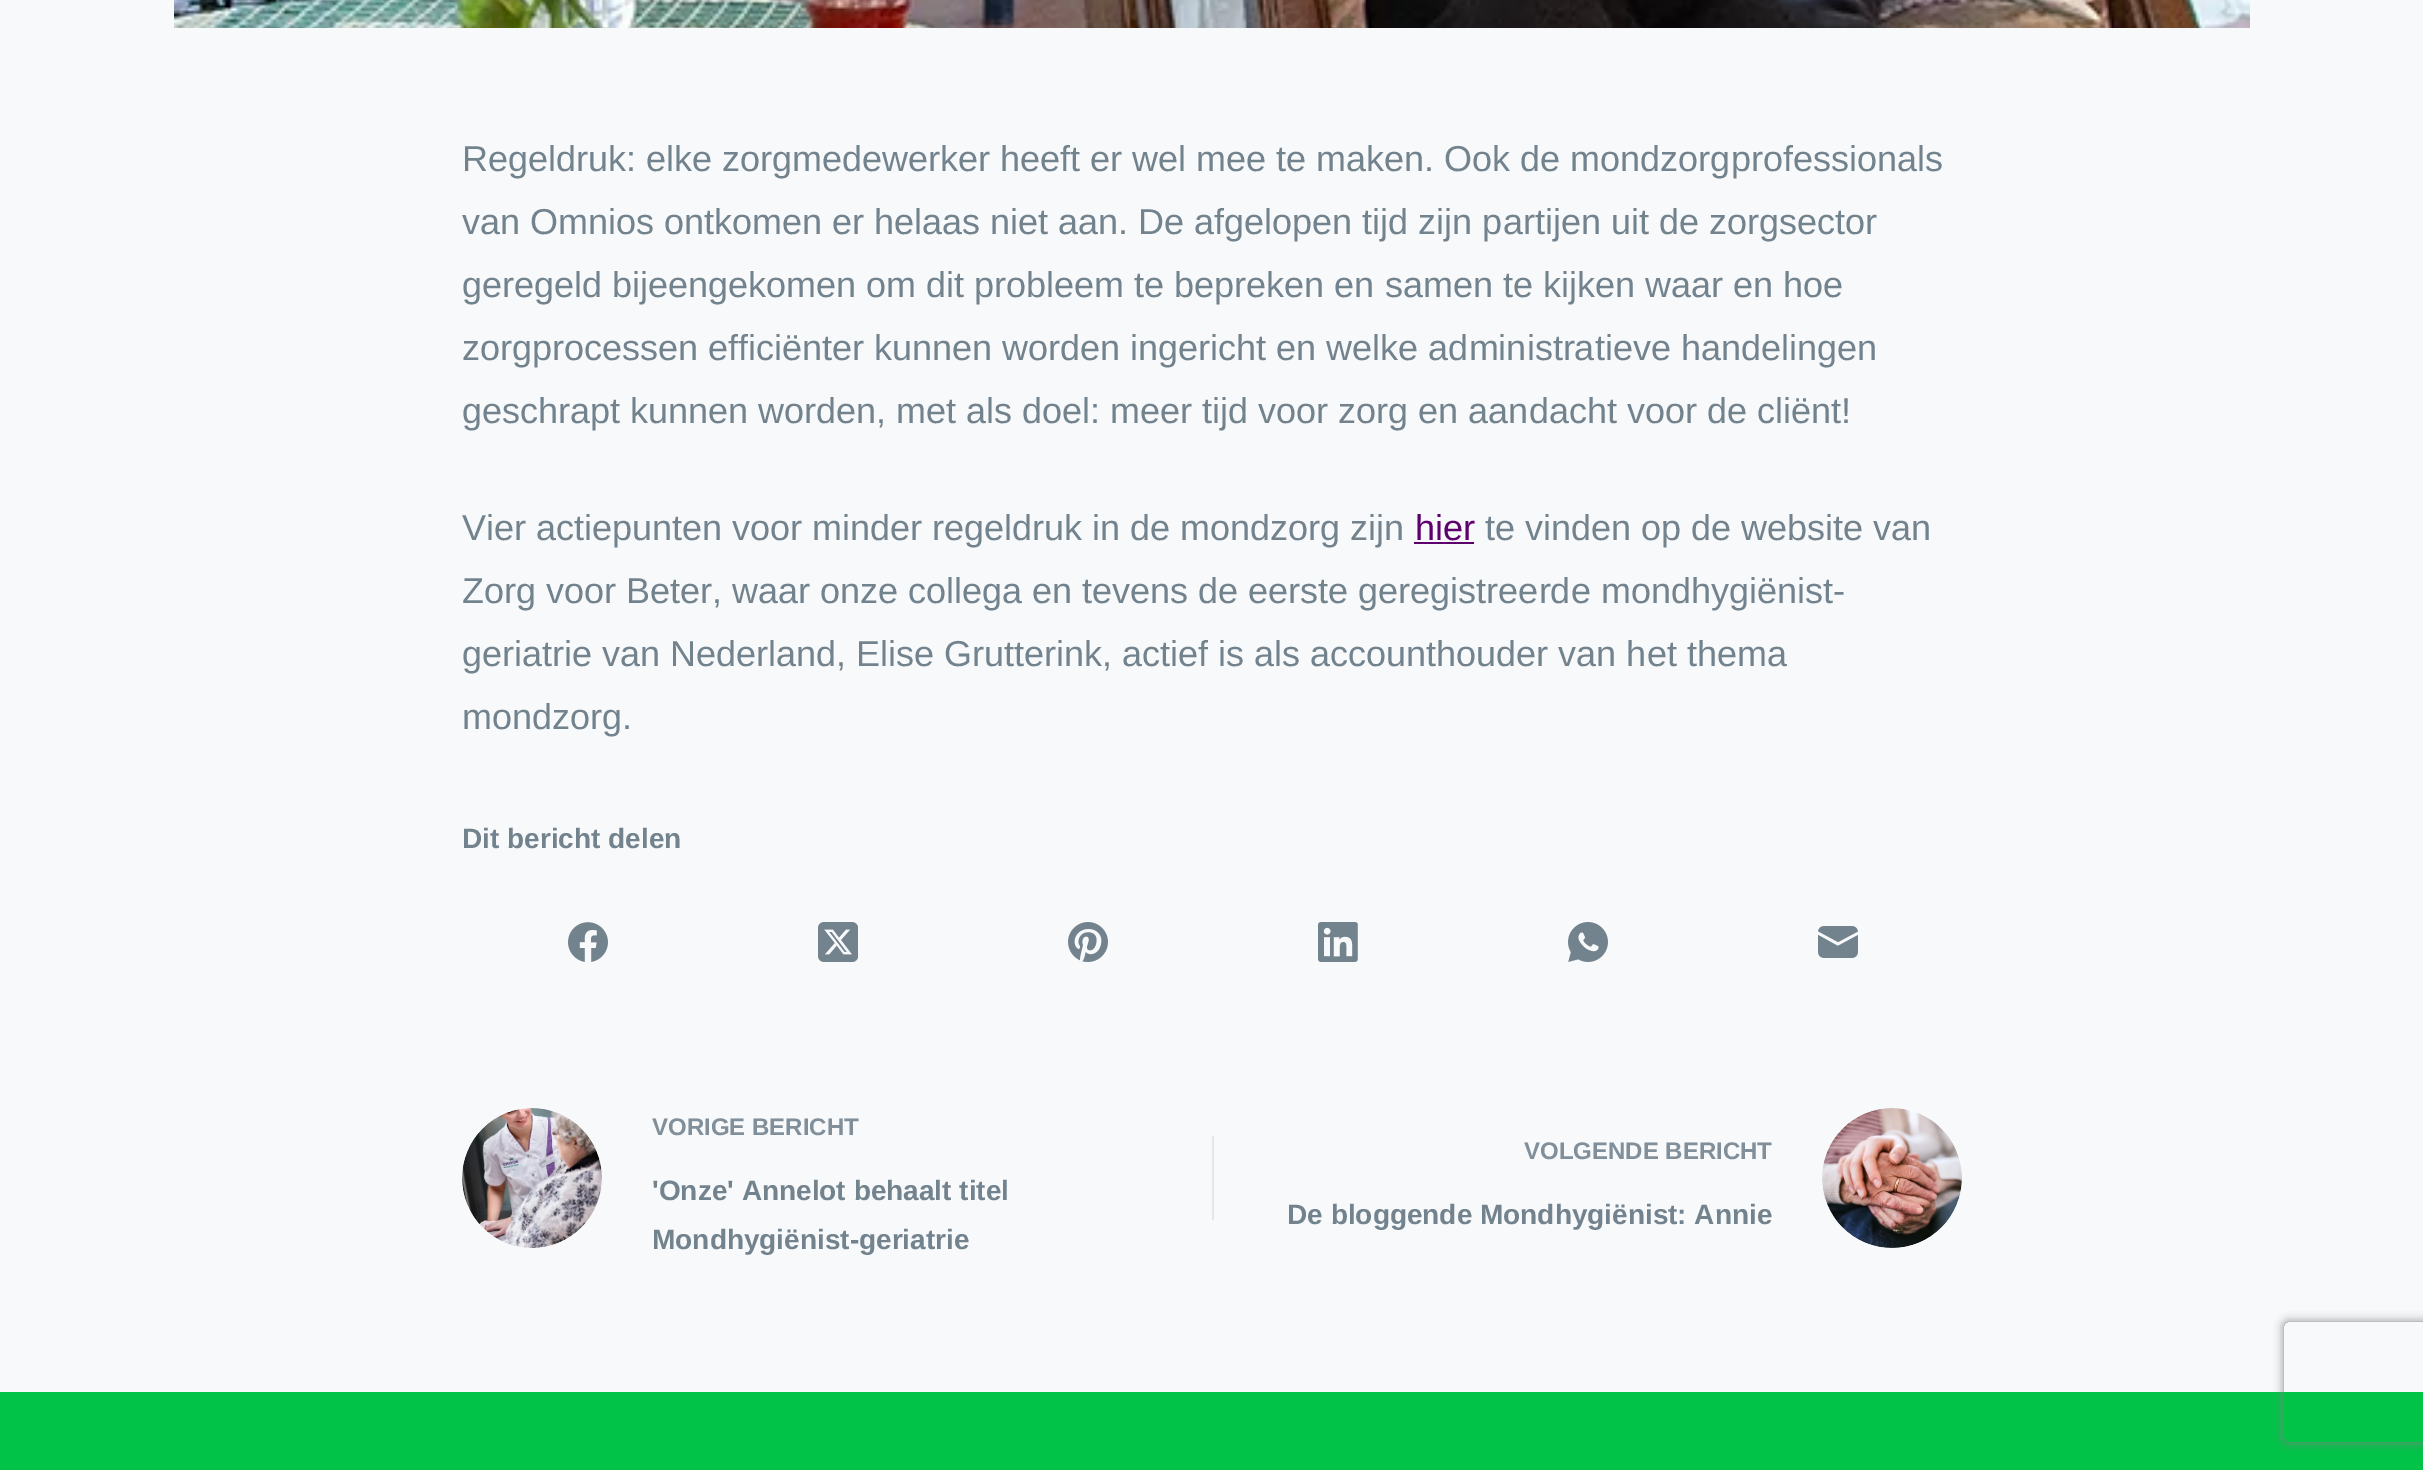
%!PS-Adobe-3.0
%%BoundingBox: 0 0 2423 1470
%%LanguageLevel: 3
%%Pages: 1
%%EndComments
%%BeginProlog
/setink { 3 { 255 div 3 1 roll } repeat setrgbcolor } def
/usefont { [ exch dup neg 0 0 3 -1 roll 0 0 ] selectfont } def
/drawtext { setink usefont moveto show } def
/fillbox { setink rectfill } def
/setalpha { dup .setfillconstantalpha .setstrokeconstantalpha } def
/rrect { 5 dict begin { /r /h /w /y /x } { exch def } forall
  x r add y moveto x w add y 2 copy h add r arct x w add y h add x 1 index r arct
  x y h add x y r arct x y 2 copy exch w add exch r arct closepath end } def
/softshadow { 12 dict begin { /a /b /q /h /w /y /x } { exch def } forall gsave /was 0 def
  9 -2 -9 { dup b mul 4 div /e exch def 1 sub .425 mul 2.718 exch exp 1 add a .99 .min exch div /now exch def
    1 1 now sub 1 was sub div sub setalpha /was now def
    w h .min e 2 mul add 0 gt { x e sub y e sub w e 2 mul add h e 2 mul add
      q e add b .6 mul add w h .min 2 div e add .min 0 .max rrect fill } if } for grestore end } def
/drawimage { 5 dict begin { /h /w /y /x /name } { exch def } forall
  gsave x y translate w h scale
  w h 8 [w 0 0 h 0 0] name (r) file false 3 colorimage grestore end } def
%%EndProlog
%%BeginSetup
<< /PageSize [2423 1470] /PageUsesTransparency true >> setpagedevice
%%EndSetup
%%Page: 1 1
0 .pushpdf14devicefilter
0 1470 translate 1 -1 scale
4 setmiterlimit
0 0 2423 1470 248 249 251 fillbox
(assets/img1.rgb) 174 0 2076 28 drawimage
(Regeldruk: elke zorgmedewerker heeft er wel mee te maken. Ook de mondzorgprofessionals) 462 171 /LiberationSans-Regular 36 115 131 142 drawtext
(van Omnios ontkomen er helaas niet aan. De afgelopen tijd zijn partijen uit de zorgsector) 462 234 /LiberationSans-Regular 36 115 131 142 drawtext
(geregeld bijeengekomen om dit probleem te bepreken en samen te kijken waar en hoe) 462 297 /LiberationSans-Regular 36 115 131 142 drawtext
(zorgprocessen efficiënter kunnen worden ingericht en welke administratieve handelingen) 462 360 /LiberationSans-Regular 36 115 131 142 drawtext
(geschrapt kunnen worden, met als doel: meer tijd voor zorg en aandacht voor de cliënt!) 462 423 /LiberationSans-Regular 36 115 131 142 drawtext
(Vier actiepunten voor minder regeldruk in de mondzorg zijn) 462 540 /LiberationSans-Regular 36 115 131 142 drawtext
(hier) 1415 540 /LiberationSans-Regular 36 93 0 110 drawtext
1414 542 60 2 93 0 110 fillbox
(te vinden op de website van) 1485 540 /LiberationSans-Regular 36 115 131 142 drawtext
(Zorg voor Beter, waar onze collega en tevens de eerste geregistreerde mondhygiënist-) 462 603 /LiberationSans-Regular 36 115 131 142 drawtext
(geriatrie van Nederland, Elise Grutterink, actief is als accounthouder van het thema) 462 666 /LiberationSans-Regular 36 115 131 142 drawtext
(mondzorg.) 462 729 /LiberationSans-Regular 36 115 131 142 drawtext
(Dit bericht delen) 462 848 /LiberationSans-Bold 28 115 131 142 drawtext
(assets/img2.rgb) 568 922 40 40 drawimage
(assets/img3.rgb) 818 922 40 40 drawimage
(assets/img4.rgb) 1068 922 40 40 drawimage
(assets/img5.rgb) 1318 922 40 40 drawimage
(assets/img6.rgb) 1568 922 40 40 drawimage
(assets/img7.rgb) 1818 926 40 32 drawimage
(assets/img8.rgb) 462 1108 140 140 drawimage
(VORIGE BERICHT) 652 1135 /LiberationSans-Bold 24 128 143 153 drawtext
('Onze' Annelot behaalt titel) 652 1200 /LiberationSans-Bold 28 115 131 142 drawtext
(Mondhygiënist-geriatrie) 652 1249 /LiberationSans-Bold 28 115 131 142 drawtext
1212 1136 2 84 226 231 237 fillbox
(VOLGENDE BERICHT) 1524 1159 /LiberationSans-Bold 24 128 143 153 drawtext
(De bloggende Mondhygiënist: Annie) 1287 1224 /LiberationSans-Bold 28 115 131 142 drawtext
(assets/img9.rgb) 1822 1108 140 140 drawimage
0 1392 2423 78 0 195 72 fillbox
gsave
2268 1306 moveto 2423 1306 lineto 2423 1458 lineto 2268 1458 lineto closepath 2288 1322 moveto 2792 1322 lineto 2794 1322 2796 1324 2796 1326 curveto 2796 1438 lineto 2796 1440 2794 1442 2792 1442 curveto 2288 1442 lineto 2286 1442 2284 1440 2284 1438 curveto 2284 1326 lineto 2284 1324 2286 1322 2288 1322 curveto closepath eoclip newpath
128 128 128 setink
2284 1322 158 120 4 5 1 softshadow
grestore
.poppdf14devicefilter showpage
%%EOF
